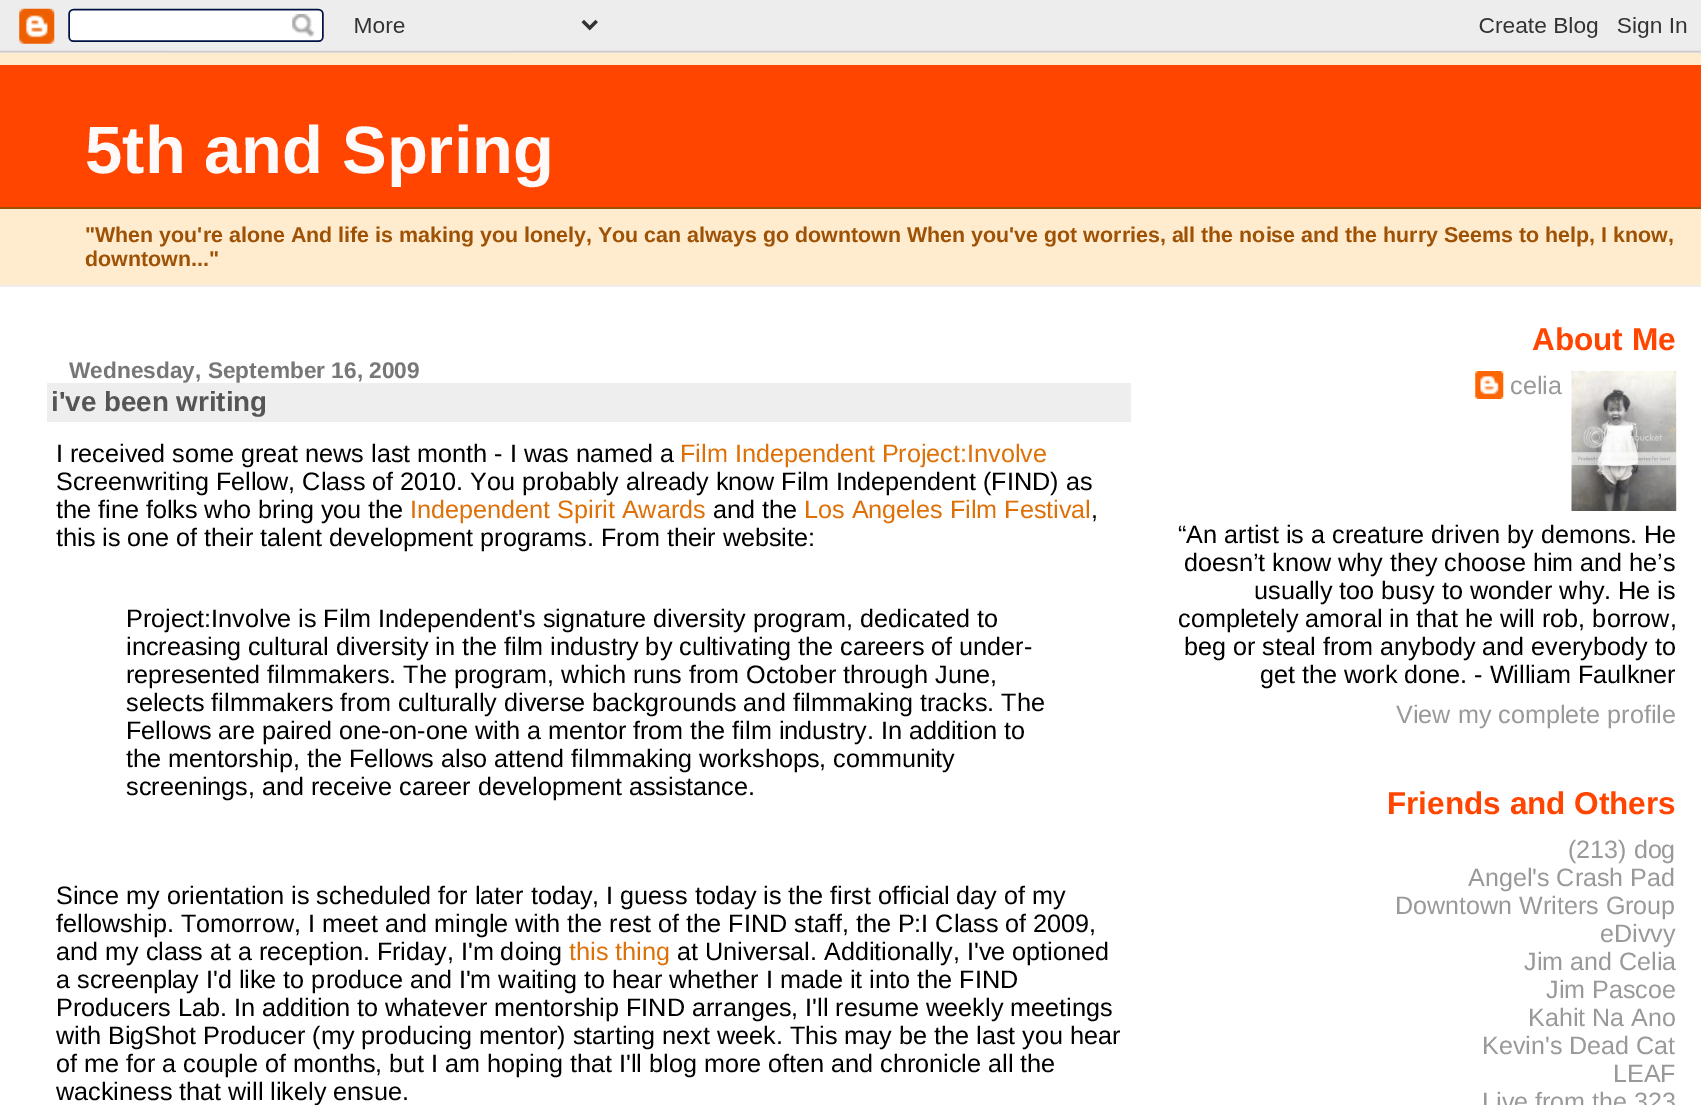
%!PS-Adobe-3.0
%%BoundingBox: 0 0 1701 1105
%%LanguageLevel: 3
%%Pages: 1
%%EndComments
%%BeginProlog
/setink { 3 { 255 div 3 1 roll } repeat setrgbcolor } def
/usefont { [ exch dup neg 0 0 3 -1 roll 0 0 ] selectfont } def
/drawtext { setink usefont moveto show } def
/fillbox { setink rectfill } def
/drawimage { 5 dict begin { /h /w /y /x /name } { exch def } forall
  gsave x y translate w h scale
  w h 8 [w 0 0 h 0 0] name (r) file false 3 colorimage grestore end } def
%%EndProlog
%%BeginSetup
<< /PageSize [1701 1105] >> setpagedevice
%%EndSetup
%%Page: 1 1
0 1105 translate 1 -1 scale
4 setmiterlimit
0 0 1701 1105 255 255 255 fillbox
(assets/img1.rgb) 0 0 1701 53 drawimage
0 53 1701 232 255 235 205 fillbox
0 285 1701 2 238 238 238 fillbox
0 65 1701 142 255 69 0 fillbox
0 207 1701 2 158 82 5 fillbox
(5th and Spring) 85 173 /LiberationSans-Bold 67 255 250 250 drawtext
("When you're alone And life is making you lonely, You can always go downtown When you've got worries, all the noise and the hurry Seems to help, I know,) 85 242 /LiberationSans-Bold 21.42 158 82 5 drawtext
(downtown...") 85 266 /LiberationSans-Bold 21.42 158 82 5 drawtext
(Wednesday, September 16, 2009) 69 378 /LiberationSans-Bold 22.7 119 119 119 drawtext
47 383 1084 39 238 238 238 fillbox
(i've been writing) 51 411 /LiberationSans-Bold 27.75 85 85 85 drawtext
(I received some great news last month - I was named a) 56 462 /LiberationSans-Regular 25.2 0 0 0 drawtext
(Film Independent Project:Involve) 680 462 /LiberationSans-Regular 25.2 222 112 8 drawtext
(Screenwriting Fellow, Class of 2010. You probably already know Film Independent \(FIND\) as) 56 490 /LiberationSans-Regular 25.2 0 0 0 drawtext
(the fine folks who bring you the) 56 518 /LiberationSans-Regular 25.2 0 0 0 drawtext
(Independent Spirit Awards) 410 518 /LiberationSans-Regular 25.2 222 112 8 drawtext
(and the) 713 518 /LiberationSans-Regular 25.2 0 0 0 drawtext
(Los Angeles Film Festival) 804 518 /LiberationSans-Regular 25.2 222 112 8 drawtext
(,) 1091 518 /LiberationSans-Regular 25.2 0 0 0 drawtext
(this is one of their talent development programs. From their website:) 56 546 /LiberationSans-Regular 25.2 0 0 0 drawtext
(Project:Involve is Film Independent's signature diversity program, dedicated to) 126 627 /LiberationSans-Regular 25.2 0 0 0 drawtext
(increasing cultural diversity in the film industry by cultivating the careers of under-) 126 655 /LiberationSans-Regular 25.2 0 0 0 drawtext
(represented filmmakers. The program, which runs from October through June,) 126 683 /LiberationSans-Regular 25.2 0 0 0 drawtext
(selects filmmakers from culturally diverse backgrounds and filmmaking tracks. The) 126 711 /LiberationSans-Regular 25.2 0 0 0 drawtext
(Fellows are paired one-on-one with a mentor from the film industry. In addition to) 126 739 /LiberationSans-Regular 25.2 0 0 0 drawtext
(the mentorship, the Fellows also attend filmmaking workshops, community) 126 767 /LiberationSans-Regular 25.2 0 0 0 drawtext
(screenings, and receive career development assistance.) 126 795 /LiberationSans-Regular 25.2 0 0 0 drawtext
(Since my orientation is scheduled for later today, I guess today is the first official day of my) 56 904 /LiberationSans-Regular 25.2 0 0 0 drawtext
(fellowship. Tomorrow, I meet and mingle with the rest of the FIND staff, the P:I Class of 2009,) 56 932 /LiberationSans-Regular 25.2 0 0 0 drawtext
(and my class at a reception. Friday, I'm doing) 56 960 /LiberationSans-Regular 25.2 0 0 0 drawtext
(this thing) 569 960 /LiberationSans-Regular 25.2 222 112 8 drawtext
(at Universal. Additionally, I've optioned) 677 960 /LiberationSans-Regular 25.2 0 0 0 drawtext
(a screenplay I'd like to produce and I'm waiting to hear whether I made it into the FIND) 56 988 /LiberationSans-Regular 25.2 0 0 0 drawtext
(Producers Lab. In addition to whatever mentorship FIND arranges, I'll resume weekly meetings) 56 1016 /LiberationSans-Regular 25.2 0 0 0 drawtext
(with BigShot Producer \(my producing mentor\) starting next week. This may be the last you hear) 56 1044 /LiberationSans-Regular 25.2 0 0 0 drawtext
(of me for a couple of months, but I am hoping that I'll blog more often and chronicle all the) 56 1072 /LiberationSans-Regular 25.2 0 0 0 drawtext
(wackiness that will likely ensue.) 56 1100 /LiberationSans-Regular 25.2 0 0 0 drawtext
(About Me) 1532 350 /LiberationSans-Bold 31.5 255 69 0 drawtext
(assets/img2.rgb) 1571 371 106 140 drawimage
(assets/img3.rgb) 1475 371 29 28 drawimage
(celia) 1510 394 /LiberationSans-Regular 25.2 153 153 153 drawtext
(“An artist is a creature driven by demons. He) 1178 543 /LiberationSans-Regular 25.2 0 0 0 drawtext
(doesn’t know why they choose him and he’s) 1184 571 /LiberationSans-Regular 25.2 0 0 0 drawtext
(usually too busy to wonder why. He is) 1254 599 /LiberationSans-Regular 25.2 0 0 0 drawtext
(completely amoral in that he will rob, borrow,) 1178 627 /LiberationSans-Regular 25.2 0 0 0 drawtext
(beg or steal from anybody and everybody to) 1184 655 /LiberationSans-Regular 25.2 0 0 0 drawtext
(get the work done. - William Faulkner) 1260 683 /LiberationSans-Regular 25.2 0 0 0 drawtext
(View my complete profile) 1396 723 /LiberationSans-Regular 25.2 153 153 153 drawtext
(Friends and Others) 1387 814 /LiberationSans-Bold 31.5 255 69 0 drawtext
(\(213\) dog) 1568 858 /LiberationSans-Regular 25.1 153 153 153 drawtext
(Angel's Crash Pad) 1468 886 /LiberationSans-Regular 25.1 153 153 153 drawtext
(Downtown Writers Group) 1395 914 /LiberationSans-Regular 25.1 153 153 153 drawtext
(eDivvy) 1600 942 /LiberationSans-Regular 25.1 153 153 153 drawtext
(Jim and Celia) 1524 970 /LiberationSans-Regular 25.1 153 153 153 drawtext
(Jim Pascoe) 1546 998 /LiberationSans-Regular 25.1 153 153 153 drawtext
(Kahit Na Ano) 1528 1026 /LiberationSans-Regular 25.1 153 153 153 drawtext
(Kevin's Dead Cat) 1482 1054 /LiberationSans-Regular 25.1 153 153 153 drawtext
(LEAF) 1613 1082 /LiberationSans-Regular 25.1 153 153 153 drawtext
(Live from the 323) 1482 1110 /LiberationSans-Regular 25.1 153 153 153 drawtext
showpage
%%EOF
